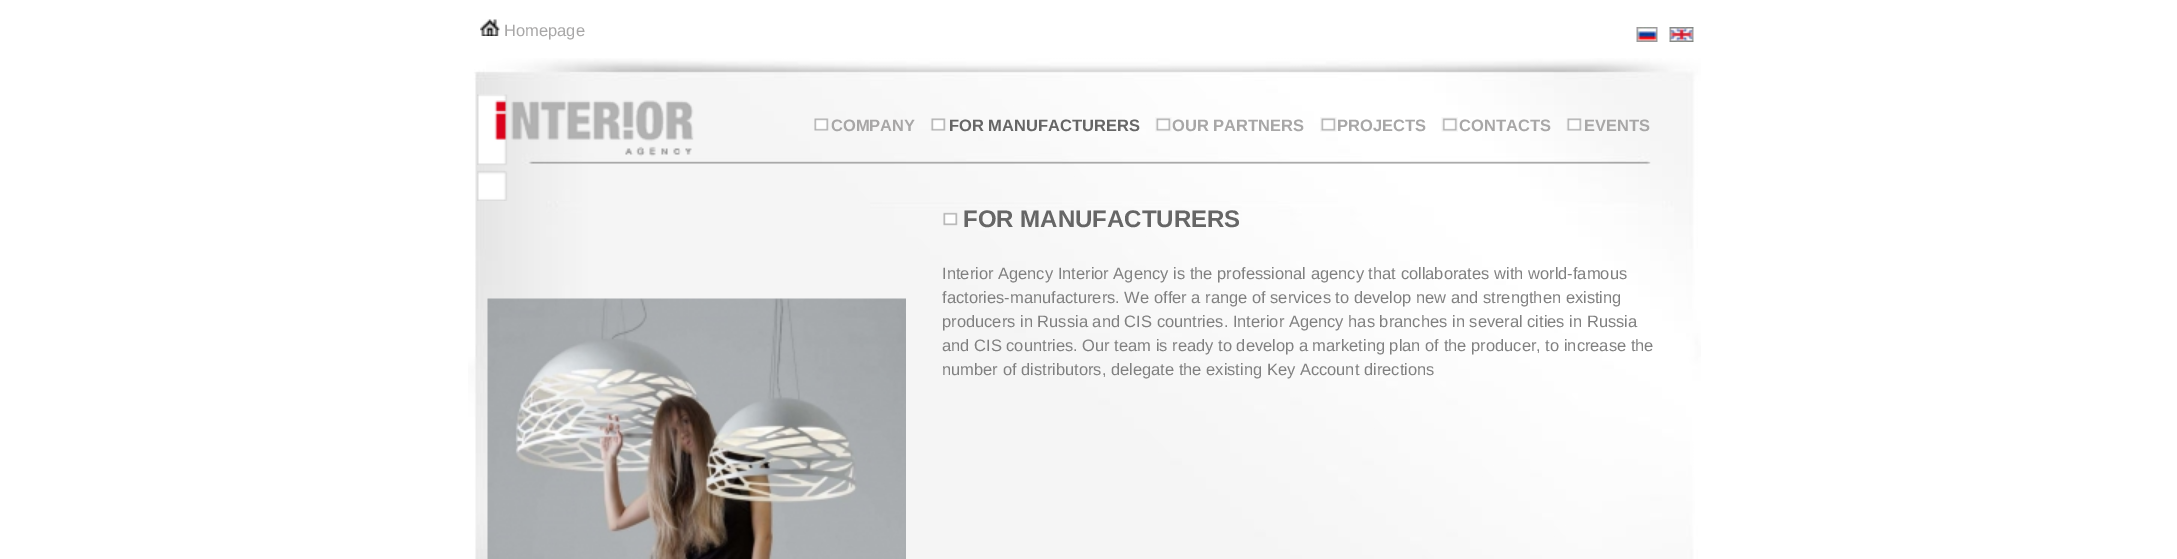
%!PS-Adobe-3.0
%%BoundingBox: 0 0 2177 559
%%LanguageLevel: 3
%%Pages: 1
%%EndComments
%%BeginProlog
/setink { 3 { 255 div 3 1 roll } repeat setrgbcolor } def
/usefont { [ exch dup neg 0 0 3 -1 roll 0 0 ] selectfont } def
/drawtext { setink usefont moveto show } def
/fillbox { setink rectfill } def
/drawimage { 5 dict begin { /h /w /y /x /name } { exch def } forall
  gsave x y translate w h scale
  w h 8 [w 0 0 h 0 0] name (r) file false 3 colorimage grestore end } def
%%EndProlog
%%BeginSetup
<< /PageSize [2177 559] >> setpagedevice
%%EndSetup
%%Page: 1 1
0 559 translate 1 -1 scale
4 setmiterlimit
0 0 2177 559 255 255 255 fillbox
(assets/img1.rgb) 480 19 20 17 drawimage
(Homepage) 504 36 /LiberationSans-Regular 16.5 168 167 167 drawtext
(assets/img2.rgb) 1636 27 22 15 drawimage
(assets/img3.rgb) 1669 27 25 15 drawimage
(assets/img4.rgb) 468 58 1233 501 drawimage
(assets/img5.rgb) 477 94 217 107 drawimage
(assets/img6.rgb) 814 118 15 13 drawimage
(COMPANY) 831 131 /LiberationSans-Bold 16.5 168 167 167 drawtext
(assets/img7.rgb) 930 118 16 13 drawimage
(FOR MANUFACTURERS) 949 131 /LiberationSans-Bold 16.5 102 102 102 drawtext
(assets/img8.rgb) 1155 117 17 15 drawimage
(OUR PARTNERS) 1172 131 /LiberationSans-Bold 16.5 168 167 167 drawtext
(assets/img9.rgb) 1320 117 17 15 drawimage
(PROJECTS) 1337 131 /LiberationSans-Bold 16.5 168 167 167 drawtext
(assets/img10.rgb) 1441 117 17 15 drawimage
(CONTACTS) 1459 131 /LiberationSans-Bold 16.5 168 167 167 drawtext
(assets/img7.rgb) 1566 118 16 13 drawimage
(EVENTS) 1584 131 /LiberationSans-Bold 16.5 168 167 167 drawtext
(assets/img11.rgb) 487 298 419 261 drawimage
(assets/img12.rgb) 943 212 15 14 drawimage
(FOR MANUFACTURERS) 963 227 /LiberationSans-Bold 24 102 102 102 drawtext
(Interior Agency Interior Agency is the professional agency that collaborates with world-famous) 942 279 /LiberationSans-Regular 16.5 128 128 128 drawtext
(factories-manufacturers. We offer a range of services to develop new and strengthen existing) 942 303 /LiberationSans-Regular 16.5 128 128 128 drawtext
(producers in Russia and CIS countries. Interior Agency has branches in several cities in Russia) 942 327 /LiberationSans-Regular 16.5 128 128 128 drawtext
(and CIS countries. Our team is ready to develop a marketing plan of the producer, to increase the) 942 351 /LiberationSans-Regular 16.5 128 128 128 drawtext
(number of distributors, delegate the existing Key Account directions) 942 375 /LiberationSans-Regular 16.5 128 128 128 drawtext
showpage
%%EOF
